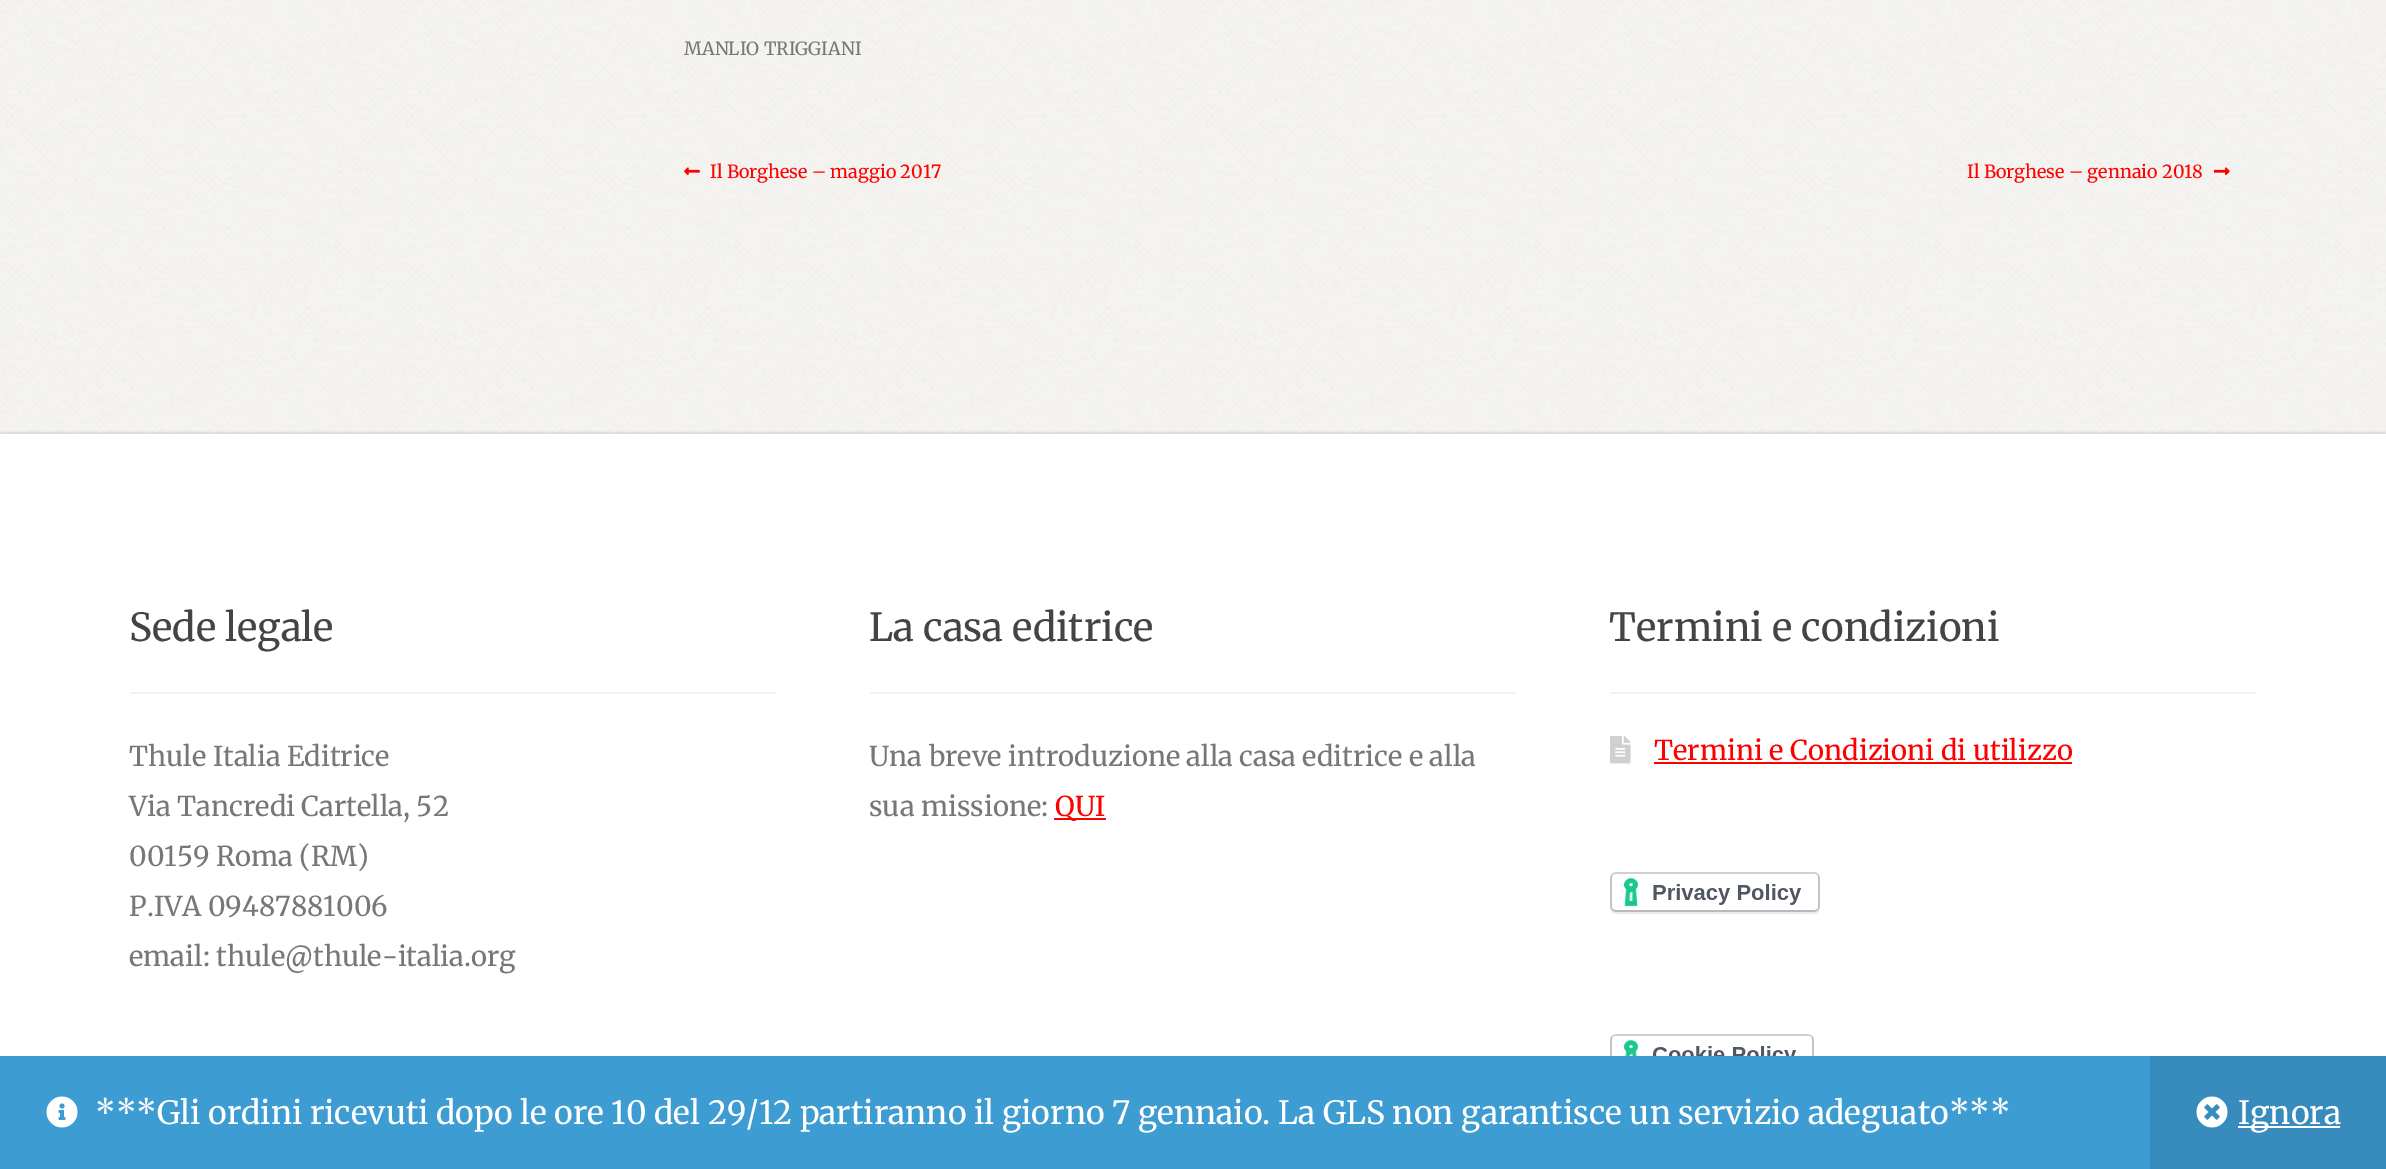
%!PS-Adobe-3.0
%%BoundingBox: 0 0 2386 1169
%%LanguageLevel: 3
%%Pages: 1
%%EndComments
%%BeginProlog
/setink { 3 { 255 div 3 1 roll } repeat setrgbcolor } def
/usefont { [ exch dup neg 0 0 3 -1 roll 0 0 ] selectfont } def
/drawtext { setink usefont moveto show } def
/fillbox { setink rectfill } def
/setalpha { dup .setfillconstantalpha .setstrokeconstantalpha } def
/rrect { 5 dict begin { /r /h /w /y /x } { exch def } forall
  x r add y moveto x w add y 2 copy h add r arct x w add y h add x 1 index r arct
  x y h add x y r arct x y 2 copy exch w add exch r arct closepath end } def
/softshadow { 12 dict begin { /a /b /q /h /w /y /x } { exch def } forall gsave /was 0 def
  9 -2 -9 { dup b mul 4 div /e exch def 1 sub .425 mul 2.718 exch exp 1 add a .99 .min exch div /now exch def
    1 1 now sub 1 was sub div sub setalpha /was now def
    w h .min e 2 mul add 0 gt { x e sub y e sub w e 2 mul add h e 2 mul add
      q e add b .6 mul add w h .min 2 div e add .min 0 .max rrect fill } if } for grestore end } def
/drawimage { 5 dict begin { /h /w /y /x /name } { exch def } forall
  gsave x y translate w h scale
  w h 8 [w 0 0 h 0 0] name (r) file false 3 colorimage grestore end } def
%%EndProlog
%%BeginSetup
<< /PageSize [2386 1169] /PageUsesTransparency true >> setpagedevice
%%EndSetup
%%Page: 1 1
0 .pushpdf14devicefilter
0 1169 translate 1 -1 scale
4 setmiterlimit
0 0 2386 1169 255 255 255 fillbox
(assets/img1.rgb) 0 0 2386 434 drawimage
(MANLIO TRIGGIANI) 684 55 /Merriweather-Regular 18 119 119 119 drawtext
(assets/img2.rgb) 684 167 16 9 drawimage
(Il Borghese – maggio 2017) 710 178 /Merriweather-Regular 18 255 0 0 drawtext
(Il Borghese – gennaio 2018) 1967 178 /Merriweather-Regular 18 255 0 0 drawtext
(assets/img3.rgb) 2214 167 16 9 drawimage
0 0 0 setink
0 432 2386 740 0 1 0.1 softshadow
0 434 2386 622 255 255 255 fillbox
130 692 646 2 242 242 242 fillbox
(Sede legale) 129 641 /Merriweather-Regular 38.75 68 68 68 drawtext
(Thule Italia Editrice) 129 766 /Merriweather-Regular 27.4 119 119 119 drawtext
(Via Tancredi Cartella, 52) 129 816 /Merriweather-Regular 27.4 119 119 119 drawtext
(00159 Roma \(RM\)) 129 866 /Merriweather-Regular 27.4 119 119 119 drawtext
(P.IVA 09487881006) 129 916 /Merriweather-Regular 27.4 119 119 119 drawtext
(email: thule@thule-italia.org) 129 966 /Merriweather-Regular 27.4 119 119 119 drawtext
870 692 646 2 242 242 242 fillbox
(La casa editrice) 869 641 /Merriweather-Regular 38.75 68 68 68 drawtext
(Una breve introduzione alla casa editrice e alla) 869 766 /Merriweather-Regular 27.4 119 119 119 drawtext
(sua missione:) 869 816 /Merriweather-Regular 27.4 119 119 119 drawtext
1054 818 52 2 255 0 0 fillbox
(QUI) 1055 816 /Merriweather-Regular 27.4 255 0 0 drawtext
1610 692 646 2 242 242 242 fillbox
(Termini e condizioni) 1609 641 /Merriweather-Regular 38.75 68 68 68 drawtext
(assets/img4.rgb) 1610 736 21 28 drawimage
(Termini e Condizioni di utilizzo) 1654 760 /Merriweather-Regular 27.4 255 0 0 drawtext
1654 762 418 2 255 0 0 fillbox
(assets/img5.rgb) 1610 872 210 42 drawimage
(assets/img6.rgb) 1610 1034 204 22 drawimage
0 1056 2150 113 61 156 210 fillbox
(assets/img7.rgb) 46 1096 32 32 drawimage
(***Gli ordini ricevuti dopo le ore 10 del 29/12 partiranno il giorno 7 gennaio. La GLS non garantisce un servizio adeguato***) 95 1124 /Merriweather-Regular 32 255 255 255 drawtext
2150 1056 236 113 55 140 189 fillbox
(assets/img8.rgb) 2196 1096 32 32 drawimage
2238 1126 102 2 255 255 255 fillbox
(Ignora) 2238 1124 /Merriweather-Regular 32 255 255 255 drawtext
.poppdf14devicefilter showpage
%%EOF
